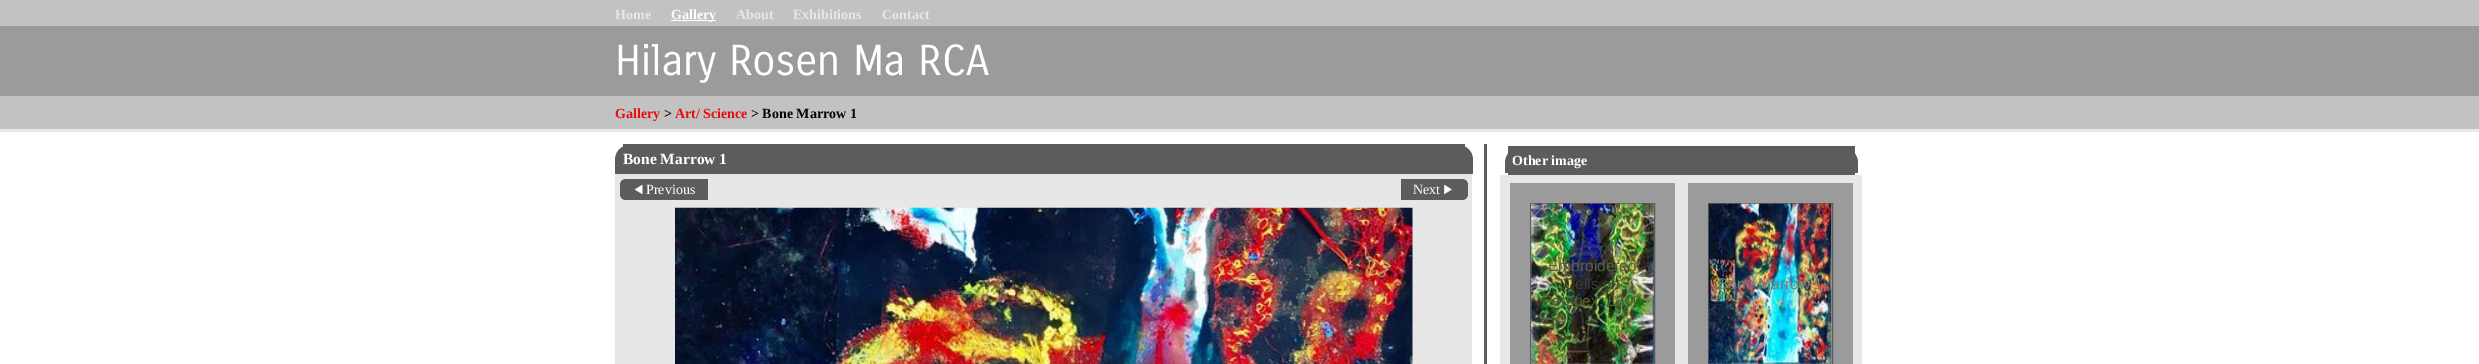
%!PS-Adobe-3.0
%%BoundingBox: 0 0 2479 364
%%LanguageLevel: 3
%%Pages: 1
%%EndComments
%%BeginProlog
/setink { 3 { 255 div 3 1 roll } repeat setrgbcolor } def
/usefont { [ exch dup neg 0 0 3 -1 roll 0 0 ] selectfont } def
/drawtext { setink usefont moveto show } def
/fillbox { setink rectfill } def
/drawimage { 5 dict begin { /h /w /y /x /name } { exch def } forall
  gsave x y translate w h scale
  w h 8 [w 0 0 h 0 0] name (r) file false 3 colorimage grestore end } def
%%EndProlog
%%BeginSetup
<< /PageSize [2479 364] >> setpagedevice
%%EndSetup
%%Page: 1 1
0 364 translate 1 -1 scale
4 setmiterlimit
0 0 2479 364 255 255 255 fillbox
0 0 2479 26 194 194 194 fillbox
(Home) 615 19 /LiberationSerif-Bold 14 231 231 231 drawtext
671 20 45 1 255 255 255 fillbox
(Gallery) 671 19 /LiberationSerif-Bold 14 255 255 255 drawtext
(About) 736 19 /LiberationSerif-Bold 14 231 231 231 drawtext
(Exhibitions) 793 19 /LiberationSerif-Bold 14 231 231 231 drawtext
(Contact) 882 19 /LiberationSerif-Bold 14 231 231 231 drawtext
0 26 2479 70 155 155 155 fillbox
(Hilary Rosen Ma RCA) 615 75 /CarroisGothic-Regular 42 255 255 255 drawtext
0 96 2479 33 194 194 194 fillbox
0 129 2479 3 232 233 234 fillbox
(Gallery) 615 118 /LiberationSerif-Bold 14 228 14 14 drawtext
(>) 664 118 /LiberationSerif-Bold 14 8 0 8 drawtext
(Art/ Science) 675 118 /LiberationSerif-Bold 14 228 14 14 drawtext
(> Bone Marrow 1) 751 118 /LiberationSerif-Bold 14 8 0 8 drawtext
231 231 231 setink
630 172 moveto 1472 172 lineto 1472 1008 lineto 615 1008 lineto 615 172 lineto closepath fill
623 144 842 3 92 92 92 fillbox
630 145 moveto 1458 145 lineto 1466.5 145 1473 151.5 1473 160 curveto 1473 174 lineto 615 174 lineto 615 160 lineto 615 151.5 621.5 145 630 145 curveto closepath fill
(Bone Marrow 1) 623 164 /LiberationSerif-Bold 15.5 255 255 255 drawtext
92 92 92 setink
626 179 moveto 708 179 lineto 708 200 lineto 626 200 lineto 622.5 200 620 197.5 620 194 curveto 620 185 lineto 620 181.5 622.5 179 626 179 curveto closepath fill
(assets/img1.rgb) 634 184 9 11 drawimage
(Previous) 646 194 /LiberationSerif-Regular 14 255 255 255 drawtext
92 92 92 setink
1401 179 moveto 1462 179 lineto 1465.5 179 1468 181.5 1468 185 curveto 1468 194 lineto 1468 197.5 1465.5 200 1462 200 curveto 1401 200 lineto closepath fill
(Next) 1413 194 /LiberationSerif-Regular 14 255 255 255 drawtext
(assets/img2.rgb) 1444 184 8 11 drawimage
(assets/img3.rgb) 675 207 738 157 drawimage
1484 144 3 220 92 92 92 fillbox
231 231 231 setink
1515 175 moveto 1862 175 lineto 1862 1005 lineto 1500 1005 lineto 1500 175 lineto closepath fill
1508 146 347 29 92 92 92 fillbox
1520 148 moveto 1843 148 lineto 1851.5 148 1858 154.5 1858 163 curveto 1858 173 lineto 1505 173 lineto 1505 163 lineto 1505 154.5 1511.5 148 1520 148 curveto closepath fill
(Other image) 1512 165 /LiberationSerif-Bold 14 255 255 255 drawtext
1510 183 165 181 155 155 155 fillbox
92 92 92 setink
1530.5 203.5 124 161 rectstroke
(assets/img4.rgb) 1531 203 123 161 drawimage
(Embroidered) 1548 271 /LiberationSans-Regular 15.5 88 96 64 drawtext
(Cells on) 1564 289 /LiberationSans-Regular 15.5 56 65 43 drawtext
(Perspex. £800) 1542 306 /LiberationSans-Regular 15.5 72 100 48 drawtext
1688 183 165 181 155 155 155 fillbox
92 92 92 setink
1708.5 203.5 124 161 rectstroke
(assets/img5.rgb) 1708 203 124 161 drawimage
(Bone Marrow 1) 1718 289 /LiberationSans-Regular 15.5 107 130 123 drawtext
showpage
%%EOF
